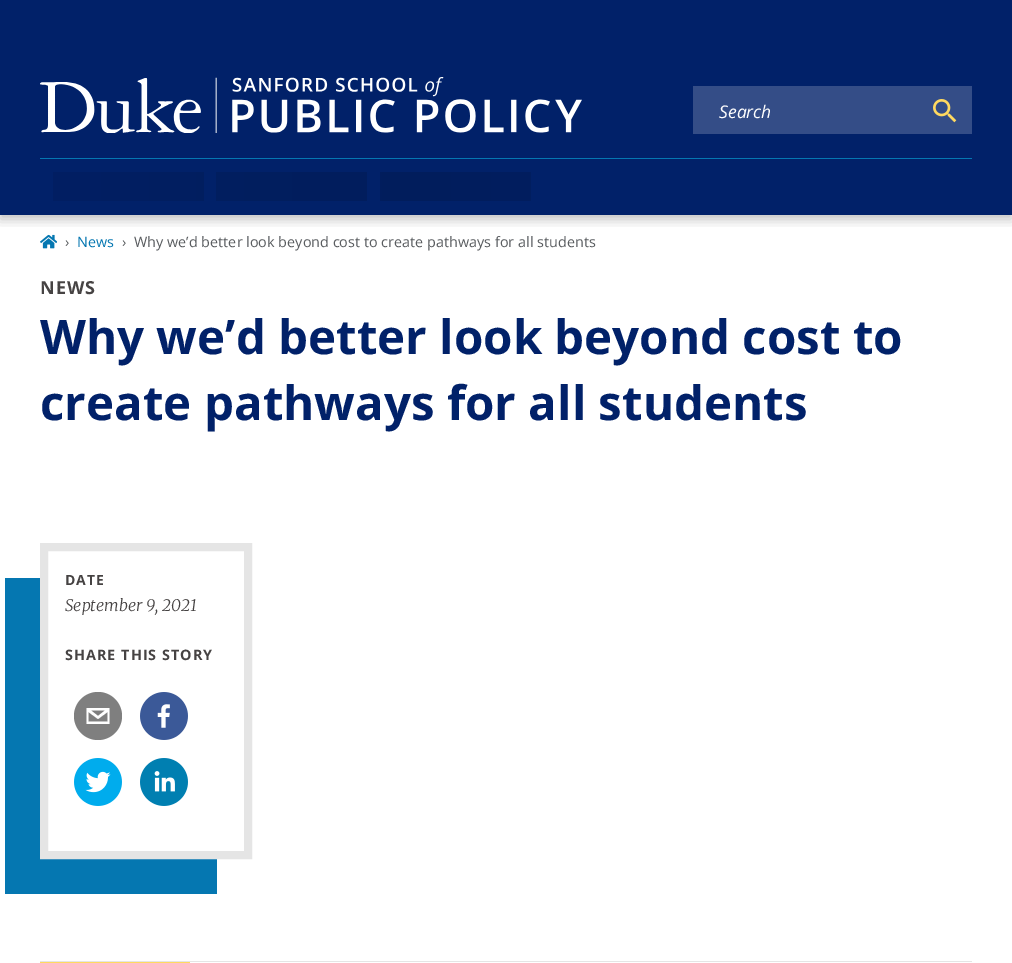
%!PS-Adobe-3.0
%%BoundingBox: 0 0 1012 963
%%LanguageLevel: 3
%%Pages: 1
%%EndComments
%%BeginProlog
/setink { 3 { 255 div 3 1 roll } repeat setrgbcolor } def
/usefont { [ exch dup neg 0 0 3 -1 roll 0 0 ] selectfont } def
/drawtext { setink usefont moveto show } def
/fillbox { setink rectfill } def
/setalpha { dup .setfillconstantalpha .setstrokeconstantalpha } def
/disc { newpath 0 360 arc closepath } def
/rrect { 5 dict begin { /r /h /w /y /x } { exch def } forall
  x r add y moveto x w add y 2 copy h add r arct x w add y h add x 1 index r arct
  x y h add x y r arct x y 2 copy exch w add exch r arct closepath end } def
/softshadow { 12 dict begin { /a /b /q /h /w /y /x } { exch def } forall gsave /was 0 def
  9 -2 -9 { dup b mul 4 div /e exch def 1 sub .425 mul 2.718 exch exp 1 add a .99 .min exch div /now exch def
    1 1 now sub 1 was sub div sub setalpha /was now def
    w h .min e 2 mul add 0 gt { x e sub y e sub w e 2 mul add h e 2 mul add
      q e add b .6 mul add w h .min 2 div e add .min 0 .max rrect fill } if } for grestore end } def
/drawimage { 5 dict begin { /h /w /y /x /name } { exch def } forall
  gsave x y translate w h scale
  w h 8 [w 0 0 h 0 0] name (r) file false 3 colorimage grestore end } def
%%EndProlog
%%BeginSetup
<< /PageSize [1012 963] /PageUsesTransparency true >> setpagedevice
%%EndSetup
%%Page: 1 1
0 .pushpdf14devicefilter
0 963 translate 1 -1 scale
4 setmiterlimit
0 0 1012 963 255 255 255 fillbox
0 0 1012 215 1 33 105 fillbox
(assets/img3.rgb) 40 234 17 15 drawimage
gsave
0 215 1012 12 rectclip
0 0 0 setink
0 4 1012 215 0 6 0.25 softshadow
grestore
(assets/img1.rgb) 40 77 542 56 drawimage
693 86 279 48 52 77 135 fillbox
(Search) 719 118 /OpenSans-Italic 17.5 255 255 255 drawtext
(assets/img2.rgb) 933 99 24 24 drawimage
40 158 932 1 5 119 177 fillbox
gsave 56 172 moveto 54 172 53 173 53 175 curveto 53 198 lineto 53 200 54 201 56 201 curveto 201 201 lineto 203 201 204 200 204 198 curveto 204 175 lineto 204 173 203 172 201 172 curveto closepath 219 172 moveto 217 172 216 173 216 175 curveto 216 198 lineto 216 200 217 201 219 201 curveto 364 201 lineto 366 201 367 200 367 198 curveto 367 175 lineto 367 173 366 172 364 172 curveto closepath 383 172 moveto 381 172 380 173 380 175 curveto 380 198 lineto 380 200 381 201 383 201 curveto 528 201 lineto 530 201 531 200 531 198 curveto 531 175 lineto 531 173 530 172 528 172 curveto closepath eoclip newpath
<< /ShadingType 2 /ColorSpace /DeviceRGB /Coords [40 159 740 159] /Extend [true true] /Function << /FunctionType 3 /Domain [0 1] /Functions [<< /FunctionType 2 /Domain [0 1] /C0 [0.004 0.122 0.388] /C1 [0.004 0.114 0.361] /N 1 >> << /FunctionType 2 /Domain [0 1] /C0 [0.004 0.114 0.361] /C1 [0.004 0.122 0.388] /N 1 >>] /Bounds [0.5] /Encode [0 1 0 1] >> >> shfill grestore
(›) 65 247 /OpenSans-Regular 14.4 89 92 95 drawtext
(News) 77 247 /OpenSans-Regular 14.4 5 119 177 drawtext
(›) 122 247 /OpenSans-Regular 14.4 89 92 95 drawtext
(Why we’d better look beyond cost to create pathways for all students) 134 247 /OpenSans-Regular 14.4 89 92 95 drawtext
/OpenSans-Bold 18 usefont
70 67 67 setink
40 294 moveto 1 0 (NEWS) ashow
(Why we’d better look beyond cost to) 40 354 /OpenSans-Bold 47.5 1 33 105 drawtext
(create pathways for all students) 40 420 /OpenSans-Bold 47.5 1 33 105 drawtext
5 119 177 setink
5 578 moveto 5 894 lineto 217 894 lineto 217 859 lineto 40 859 lineto 40 578 lineto closepath fill
229 229 229 setink
8 setlinewidth
44 547 204 308 rectstroke
/OpenSans-Bold 14 usefont
70 67 67 setink
65 585 moveto 1 0 (DATE) ashow
(September 9, 2021) 65 611 /Merriweather-LightItalic 16 70 67 67 drawtext
/OpenSans-Bold 14.4 usefont
65 660 moveto 1 0 (SHARE THIS STORY) ashow
127 127 127 setink
98 716 24 disc fill
255 255 255 setink
86.5 708 moveto 86.5 724 lineto 109.5 724 lineto 109.5 708 lineto closepath 105 710.5 moveto 98 716 lineto 91 710.5 lineto closepath 88.5 721.5 moveto 88.5 712 lineto 98 719 lineto 107.5 712 lineto 107.5 721.5 lineto closepath fill
(assets/img4.rgb) 140 692 48 48 drawimage
(assets/img5.rgb) 74 758 48 48 drawimage
(assets/img6.rgb) 140 758 48 48 drawimage
40 961 932 1 229 229 229 fillbox
40 962 150 1 255 217 96 fillbox
.poppdf14devicefilter showpage
%%EOF
